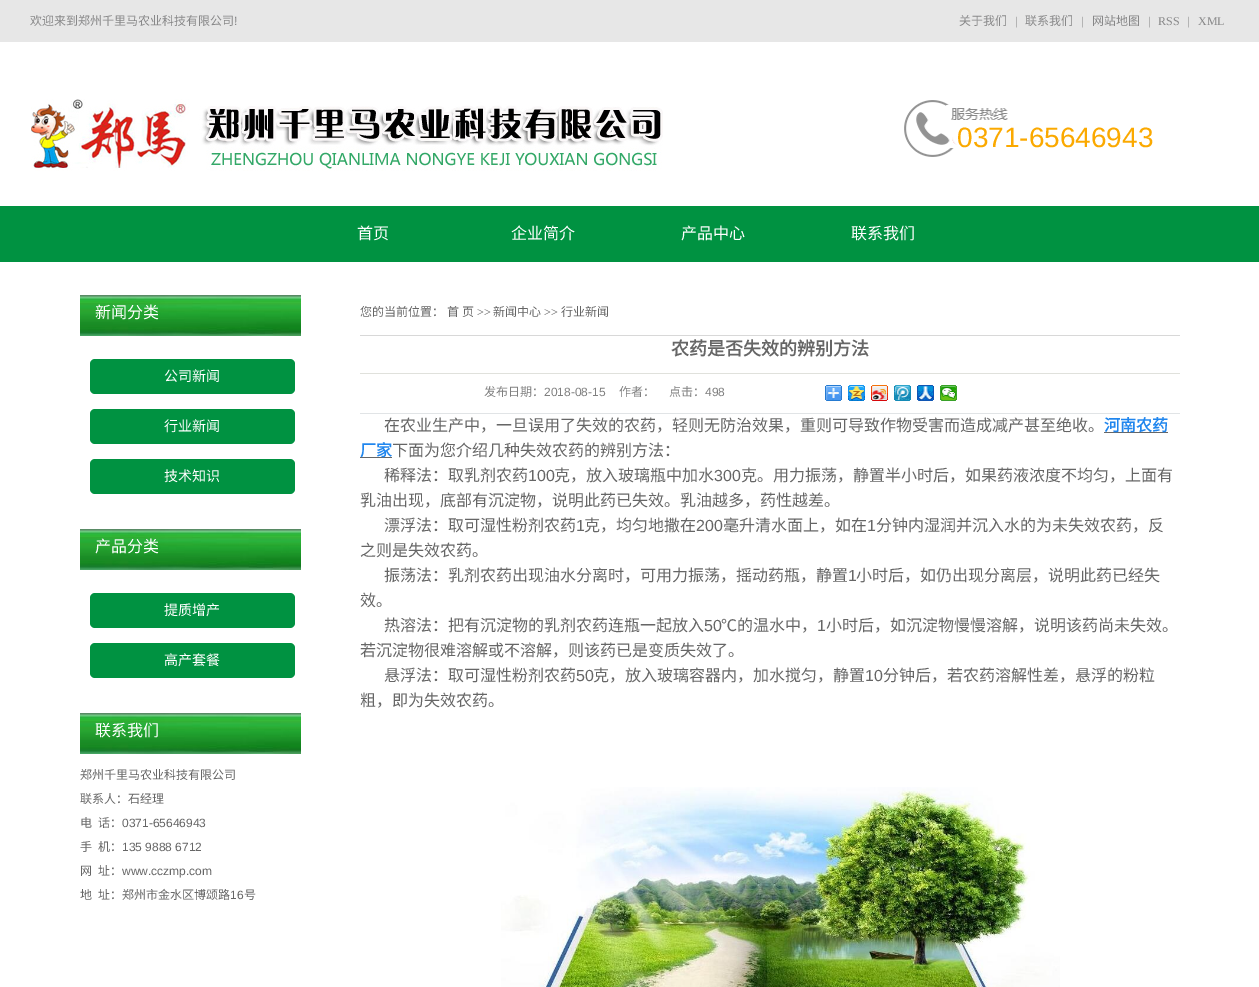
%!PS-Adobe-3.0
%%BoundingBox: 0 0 1259 987
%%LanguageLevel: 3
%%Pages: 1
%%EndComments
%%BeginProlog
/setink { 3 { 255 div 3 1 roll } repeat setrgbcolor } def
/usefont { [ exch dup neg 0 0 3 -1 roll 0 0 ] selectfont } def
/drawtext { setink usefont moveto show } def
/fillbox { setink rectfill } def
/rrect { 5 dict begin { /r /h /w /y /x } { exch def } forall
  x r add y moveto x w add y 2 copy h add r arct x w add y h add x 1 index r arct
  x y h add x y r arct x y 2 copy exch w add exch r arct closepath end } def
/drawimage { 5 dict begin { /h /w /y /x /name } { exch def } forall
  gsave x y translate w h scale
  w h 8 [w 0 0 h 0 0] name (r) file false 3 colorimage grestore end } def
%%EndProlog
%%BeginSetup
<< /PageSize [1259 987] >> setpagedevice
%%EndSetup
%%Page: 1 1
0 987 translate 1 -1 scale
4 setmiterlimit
0 0 1259 987 255 255 255 fillbox
0 0 1259 42 231 231 231 fillbox
(欢迎来到郑州千里马农业科技有限公司) 30 25 /NotoSansCJKSC-Regular 12 136 136 137 drawtext
(!) 234 25 /LiberationSans-Regular 12 136 136 137 drawtext
(关于我们) 959 25 /NotoSansCJKSC-Regular 12 136 136 137 drawtext
(|) 1015 25 /LiberationSerif-Regular 12 136 136 137 drawtext
(联系我们) 1025 25 /NotoSansCJKSC-Regular 12 136 136 137 drawtext
(|) 1081 25 /LiberationSerif-Regular 12 136 136 137 drawtext
(网站地图) 1092 25 /NotoSansCJKSC-Regular 12 136 136 137 drawtext
(|) 1148 25 /LiberationSerif-Regular 12 136 136 137 drawtext
(RSS) 1158 25 /LiberationSerif-Regular 12 136 136 137 drawtext
(|) 1187 25 /LiberationSerif-Regular 12 136 136 137 drawtext
(XML) 1198 25 /LiberationSerif-Regular 12 136 136 137 drawtext
(assets/img1.rgb) 31 99 632 72 drawimage
(assets/img2.rgb) 904 100 104 57 drawimage
(0371-65646943) 957 147 /LiberationSans-Regular 28 251 169 0 drawtext
0 206 1259 56 0 146 65 fillbox
(首页) 357 239 /NotoSansCJKSC-Regular 16 255 255 255 drawtext
(企业简介) 511 239 /NotoSansCJKSC-Regular 16 255 255 255 drawtext
(产品中心) 681 239 /NotoSansCJKSC-Regular 16 255 255 255 drawtext
(联系我们) 851 239 /NotoSansCJKSC-Regular 16 255 255 255 drawtext
(assets/img3.rgb) 80 295 221 41 drawimage
(新闻分类) 95 318 /NotoSansCJKSC-Regular 16 255 255 255 drawtext
0 146 65 setink
90 359 205 35 5 rrect fill
(公司新闻) 164 381 /NotoSansCJKSC-Regular 14 255 255 255 drawtext
0 146 65 setink
90 409 205 35 5 rrect fill
(行业新闻) 164 431 /NotoSansCJKSC-Regular 14 255 255 255 drawtext
0 146 65 setink
90 459 205 35 5 rrect fill
(技术知识) 164 481 /NotoSansCJKSC-Regular 14 255 255 255 drawtext
(assets/img3.rgb) 80 529 221 41 drawimage
(产品分类) 95 552 /NotoSansCJKSC-Regular 16 255 255 255 drawtext
0 146 65 setink
90 593 205 35 5 rrect fill
(提质增产) 164 615 /NotoSansCJKSC-Regular 14 255 255 255 drawtext
0 146 65 setink
90 643 205 35 5 rrect fill
(高产套餐) 164 665 /NotoSansCJKSC-Regular 14 255 255 255 drawtext
(assets/img3.rgb) 80 713 221 41 drawimage
(联系我们) 95 736 /NotoSansCJKSC-Regular 16 255 255 255 drawtext
(郑州千里马农业科技有限公司) 80 779 /NotoSansCJKSC-Regular 12 102 102 102 drawtext
(联系人：石经理) 80 803 /NotoSansCJKSC-Regular 12 102 102 102 drawtext
(电) 80 827 /NotoSansCJKSC-Regular 12 102 102 102 drawtext
(话：) 98 827 /NotoSansCJKSC-Regular 12 102 102 102 drawtext
(0371-65646943) 122 827 /LiberationSans-Regular 12 102 102 102 drawtext
(手) 80 851 /NotoSansCJKSC-Regular 12 102 102 102 drawtext
(机：) 98 851 /NotoSansCJKSC-Regular 12 102 102 102 drawtext
(135 9888 6712) 122 851 /LiberationSans-Regular 12 102 102 102 drawtext
(网) 80 875 /NotoSansCJKSC-Regular 12 102 102 102 drawtext
(址：) 98 875 /NotoSansCJKSC-Regular 12 102 102 102 drawtext
(www.cczmp.com) 122 875 /LiberationSans-Regular 12 102 102 102 drawtext
(地) 80 899 /NotoSansCJKSC-Regular 12 102 102 102 drawtext
(址：郑州市金水区博颂路) 98 899 /NotoSansCJKSC-Regular 12 102 102 102 drawtext
(16) 230 899 /LiberationSans-Regular 12 102 102 102 drawtext
(号) 244 899 /NotoSansCJKSC-Regular 12 102 102 102 drawtext
360 335 820 1 216 216 216 fillbox
(您的当前位置：) 360 316 /NotoSansCJKSC-Regular 12 102 102 102 drawtext
(首 页) 447 316 /NotoSansCJKSC-Regular 12 102 102 102 drawtext
(>>) 477 316 /LiberationSerif-Regular 12 102 102 102 drawtext
(新闻中心) 493 316 /NotoSansCJKSC-Regular 12 102 102 102 drawtext
(>>) 544 316 /LiberationSerif-Regular 12 102 102 102 drawtext
(行业新闻) 561 316 /NotoSansCJKSC-Regular 12 102 102 102 drawtext
360 373 820 1 224 225 220 fillbox
(农药是否失效的辨别方法) 671 355 /NotoSansCJKSC-Bold 18 102 102 102 drawtext
360 413 820 1 225 228 230 fillbox
(发布日期：) 484 396 /NotoSansCJKSC-Regular 12 128 128 128 drawtext
(2018-08-15) 544 396 /LiberationSans-Regular 12 128 128 128 drawtext
(作者：) 619 396 /NotoSansCJKSC-Regular 12 128 128 128 drawtext
(点击：) 669 396 /NotoSansCJKSC-Regular 12 128 128 128 drawtext
(498) 705 396 /LiberationSans-Regular 12 128 128 128 drawtext
(assets/img4.rgb) 825 385 17 16 drawimage
(assets/img5.rgb) 848 385 17 16 drawimage
(assets/img6.rgb) 871 385 17 16 drawimage
(assets/img7.rgb) 894 385 17 16 drawimage
(assets/img8.rgb) 917 385 17 16 drawimage
(assets/img9.rgb) 940 385 17 16 drawimage
(在农业生产中，一旦误用了失效的农药，轻则无防治效果，重则可导致作物受害而造成减产甚至绝收。) 384 431 /NotoSansCJKSC-Regular 16 102 102 102 drawtext
1104 432 64 1 102 102 102 fillbox
(河南农药) 1104 431 /NotoSansCJKSC-Bold 16 32 134 238 drawtext
360 457 32 1 102 102 102 fillbox
(厂家) 360 456 /NotoSansCJKSC-Bold 16 32 134 238 drawtext
(下面为您介绍几种失效农药的辨别方法：) 392 456 /NotoSansCJKSC-Regular 16 102 102 102 drawtext
(稀释法：取乳剂农药) 384 481 /NotoSansCJKSC-Regular 16 102 102 102 drawtext
(100) 528 481 /LiberationSans-Regular 16 102 102 102 drawtext
(克，放入玻璃瓶中加水) 554 481 /NotoSansCJKSC-Regular 16 102 102 102 drawtext
(300) 714 481 /LiberationSans-Regular 16 102 102 102 drawtext
(克。用力振荡，静置半小时后，如果药液浓度不均匀，上面有) 741 481 /NotoSansCJKSC-Regular 16 102 102 102 drawtext
(乳油出现，底部有沉淀物，说明此药已失效。乳油越多，药性越差。) 360 506 /NotoSansCJKSC-Regular 16 102 102 102 drawtext
(漂浮法：取可湿性粉剂农药) 384 531 /NotoSansCJKSC-Regular 16 102 102 102 drawtext
(1) 576 531 /LiberationSans-Regular 16 102 102 102 drawtext
(克，均匀地撒在) 584 531 /NotoSansCJKSC-Regular 16 102 102 102 drawtext
(200) 696 531 /LiberationSans-Regular 16 102 102 102 drawtext
(毫升清水面上，如在) 723 531 /NotoSansCJKSC-Regular 16 102 102 102 drawtext
(1) 867 531 /LiberationSans-Regular 16 102 102 102 drawtext
(分钟内湿润并沉入水的为未失效农药，反) 876 531 /NotoSansCJKSC-Regular 16 102 102 102 drawtext
(之则是失效农药。) 360 556 /NotoSansCJKSC-Regular 16 102 102 102 drawtext
(振荡法：乳剂农药出现油水分离时，可用力振荡，摇动药瓶，静置) 384 581 /NotoSansCJKSC-Regular 16 102 102 102 drawtext
(1) 848 581 /LiberationSans-Regular 16 102 102 102 drawtext
(小时后，如仍出现分离层，说明此药已经失) 856 581 /NotoSansCJKSC-Regular 16 102 102 102 drawtext
(效。) 360 606 /NotoSansCJKSC-Regular 16 102 102 102 drawtext
(热溶法：把有沉淀物的乳剂农药连瓶一起放入) 384 631 /NotoSansCJKSC-Regular 16 102 102 102 drawtext
(50) 704 631 /LiberationSans-Regular 16 102 102 102 drawtext
(℃的温水中，) 721 631 /NotoSansCJKSC-Regular 16 102 102 102 drawtext
(1) 817 631 /LiberationSans-Regular 16 102 102 102 drawtext
(小时后，如沉淀物慢慢溶解，说明该药尚未失效。) 826 631 /NotoSansCJKSC-Regular 16 102 102 102 drawtext
(若沉淀物很难溶解或不溶解，则该药已是变质失效了。) 360 656 /NotoSansCJKSC-Regular 16 102 102 102 drawtext
(悬浮法：取可湿性粉剂农药) 384 681 /NotoSansCJKSC-Regular 16 102 102 102 drawtext
(50) 576 681 /LiberationSans-Regular 16 102 102 102 drawtext
(克，放入玻璃容器内，加水搅匀，静置) 593 681 /NotoSansCJKSC-Regular 16 102 102 102 drawtext
(10) 865 681 /LiberationSans-Regular 16 102 102 102 drawtext
(分钟后，若农药溶解性差，悬浮的粉粒) 883 681 /NotoSansCJKSC-Regular 16 102 102 102 drawtext
(粗，即为失效农药。) 360 706 /NotoSansCJKSC-Regular 16 102 102 102 drawtext
(assets/img10.rgb) 501 787 559 200 drawimage
showpage
%%EOF
